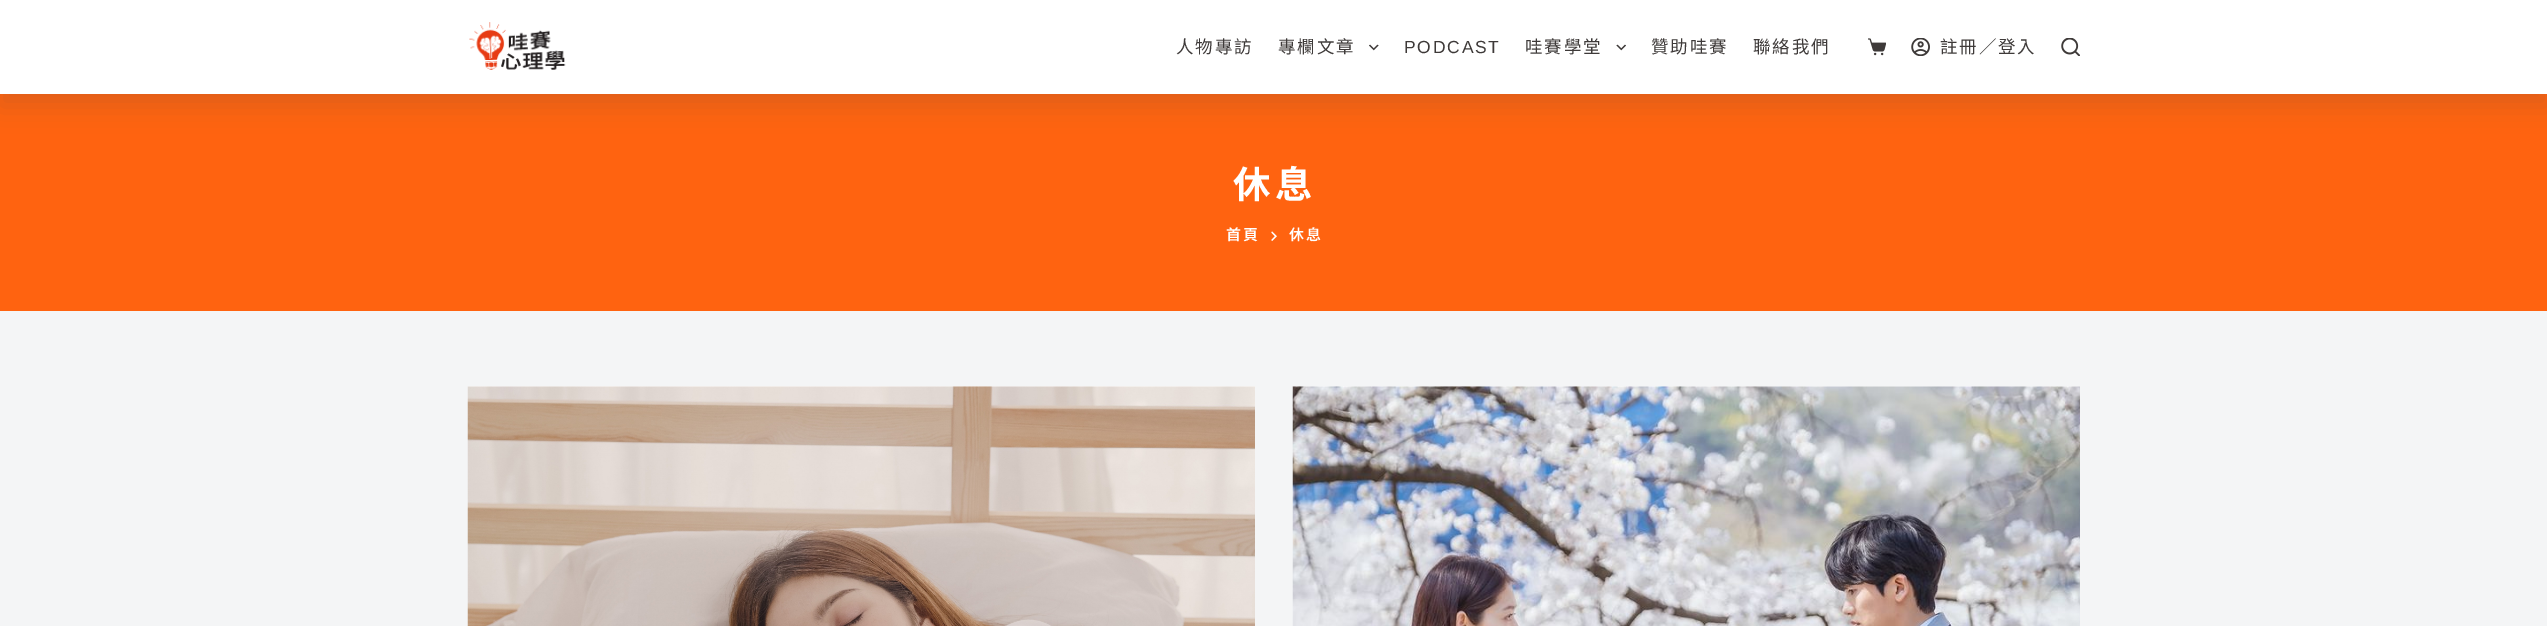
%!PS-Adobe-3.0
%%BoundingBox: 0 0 2547 626
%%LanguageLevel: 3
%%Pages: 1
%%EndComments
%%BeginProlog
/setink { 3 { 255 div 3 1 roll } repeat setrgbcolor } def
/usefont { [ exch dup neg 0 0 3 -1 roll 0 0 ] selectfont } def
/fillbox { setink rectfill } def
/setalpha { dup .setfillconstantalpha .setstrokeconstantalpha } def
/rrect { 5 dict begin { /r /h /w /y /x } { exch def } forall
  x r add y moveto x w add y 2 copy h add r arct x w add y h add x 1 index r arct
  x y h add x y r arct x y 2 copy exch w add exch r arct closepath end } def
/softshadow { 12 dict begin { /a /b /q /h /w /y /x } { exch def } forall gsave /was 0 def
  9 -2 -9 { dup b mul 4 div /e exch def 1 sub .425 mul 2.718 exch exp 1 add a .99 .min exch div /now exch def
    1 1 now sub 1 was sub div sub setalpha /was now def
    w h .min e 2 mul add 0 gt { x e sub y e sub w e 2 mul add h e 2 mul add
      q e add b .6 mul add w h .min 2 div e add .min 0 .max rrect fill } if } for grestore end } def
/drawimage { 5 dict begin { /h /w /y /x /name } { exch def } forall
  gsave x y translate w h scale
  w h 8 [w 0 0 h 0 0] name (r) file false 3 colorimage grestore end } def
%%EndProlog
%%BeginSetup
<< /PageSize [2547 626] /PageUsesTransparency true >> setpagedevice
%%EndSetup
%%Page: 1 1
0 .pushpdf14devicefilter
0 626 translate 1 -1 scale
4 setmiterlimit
0 0 2547 626 244 245 246 fillbox
0 94 2547 217 255 99 16 fillbox
43 61 79 setink
0 13 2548 93 0 12.5 0.15 softshadow
0 0 2547 94 255 255 255 fillbox
(assets/img1.rgb) 469 22 97 48 drawimage
/NotoSansCJKTC-Regular 17.5 usefont
62 58 57 setink
1176 53 moveto 1.75 0 (人物專訪) ashow
1278 53 moveto 1.75 0 (專欄文章) ashow
(assets/img2.rgb) 1369 44 10 7 drawimage
/LiberationSans-Regular 17.5 usefont
1404 53 moveto 1.75 0 (PODCAST) ashow
/NotoSansCJKTC-Regular 17.5 usefont
1525 53 moveto 1.75 0 (哇賽學堂) ashow
(assets/img3.rgb) 1616 44 10 7 drawimage
1651 53 moveto 1.75 0 (贊助哇賽) ashow
1753 53 moveto 1.75 0 (聯絡我們) ashow
(assets/img4.rgb) 1868 38 18 18 drawimage
(assets/img5.rgb) 1911 38 19 18 drawimage
1940 53 moveto 1.75 0 (註冊／登入) ashow
(assets/img6.rgb) 2061 38 19 18 drawimage
/NotoSansTC-Bold 37.5 usefont
255 255 255 setink
1233 198 moveto 4 0 (休息) ashow
/NotoSansTC-SemiBold 15 usefont
1226 240 moveto 2 0 (首頁) ashow
(assets/img7.rgb) 1271 231 6 10 drawimage
1289 240 moveto 2 0 (休息) ashow
468 386 787 1 255 255 255 fillbox
(assets/img8.rgb) 467 386 788 240 drawimage
1293 386 787 1 255 255 255 fillbox
(assets/img9.rgb) 1292 386 788 240 drawimage
.poppdf14devicefilter showpage
%%EOF
